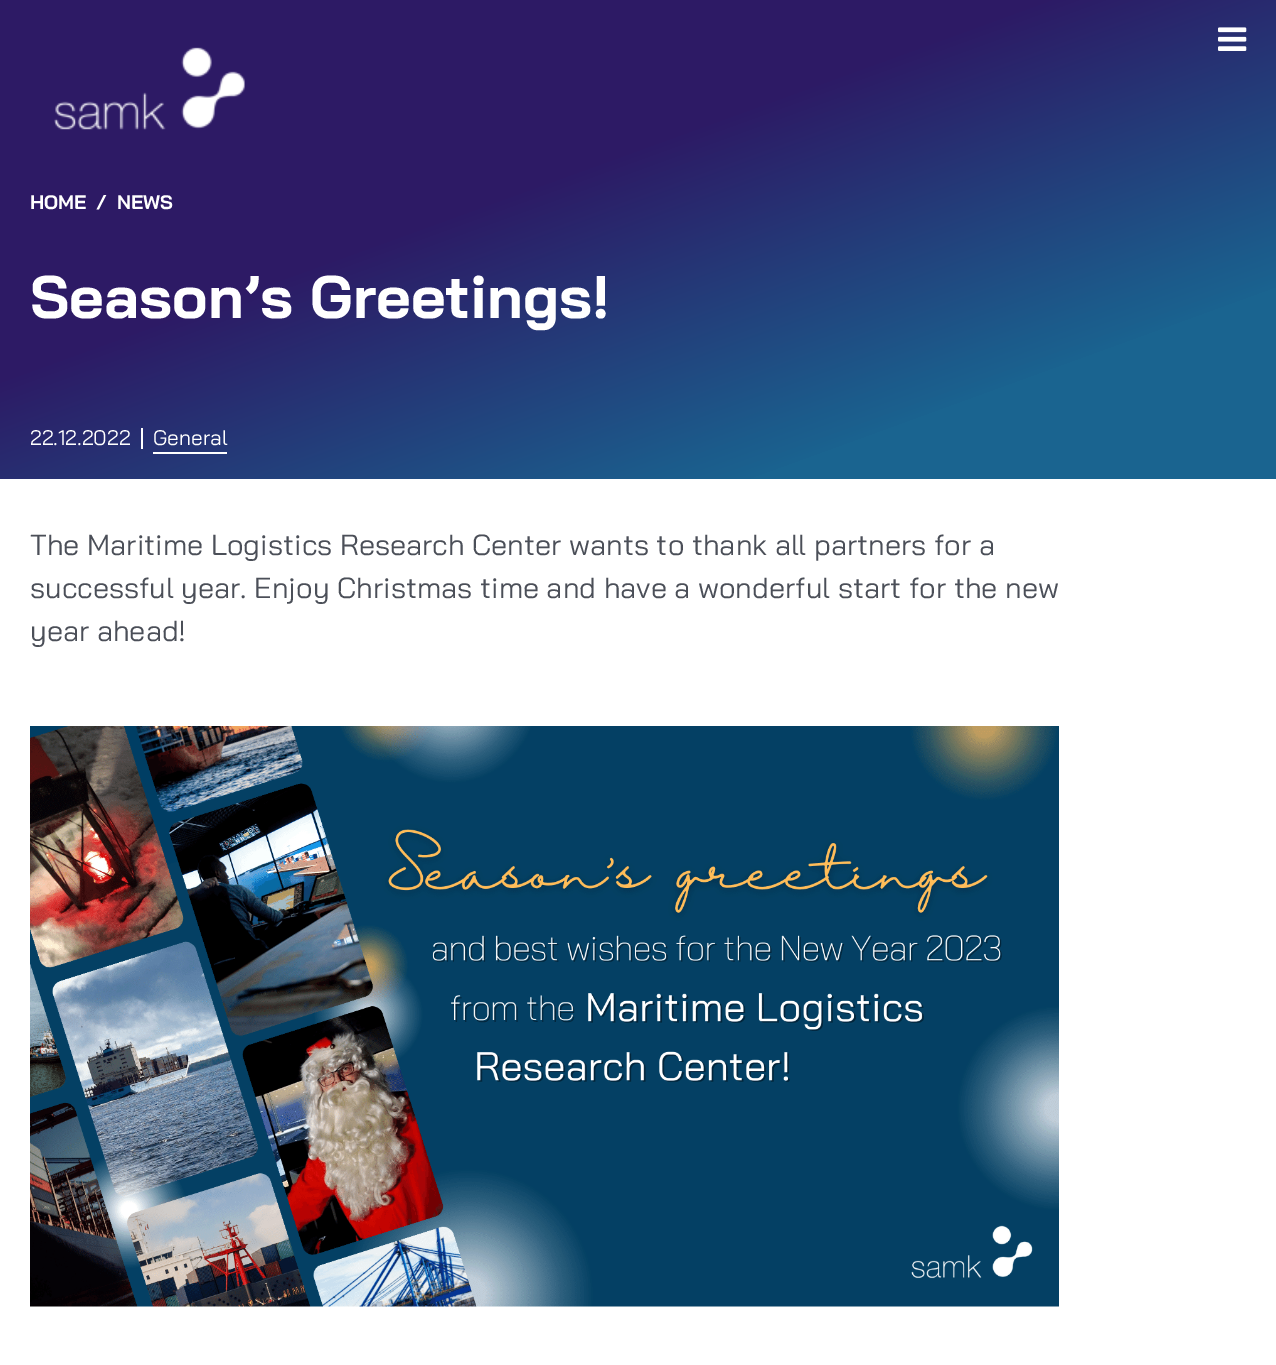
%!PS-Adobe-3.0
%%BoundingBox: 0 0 1276 1365
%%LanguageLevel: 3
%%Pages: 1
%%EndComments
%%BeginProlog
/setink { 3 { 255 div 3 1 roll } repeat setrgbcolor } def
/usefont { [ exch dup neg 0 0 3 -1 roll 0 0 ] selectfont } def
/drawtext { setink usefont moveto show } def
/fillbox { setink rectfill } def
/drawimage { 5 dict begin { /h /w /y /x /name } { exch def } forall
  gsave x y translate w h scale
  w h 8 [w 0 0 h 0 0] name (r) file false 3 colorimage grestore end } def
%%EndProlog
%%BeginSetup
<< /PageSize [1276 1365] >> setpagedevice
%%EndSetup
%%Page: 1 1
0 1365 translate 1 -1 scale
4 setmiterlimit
0 0 1276 1365 255 255 255 fillbox
gsave 0 0 moveto 1276 0 lineto 1276 479 lineto 0 479 lineto closepath clip newpath
<< /ShadingType 2 /ColorSpace /DeviceRGB /Coords [790 656 487 -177] /Extend [true true] /Function << /FunctionType 3 /Domain [0 1] /Functions [<< /FunctionType 2 /Domain [0 1] /C0 [0.102 0.392 0.565] /C1 [0.102 0.392 0.565] /N 1 >> << /FunctionType 2 /Domain [0 1] /C0 [0.102 0.392 0.565] /C1 [0.176 0.102 0.396] /N 1 >> << /FunctionType 2 /Domain [0 1] /C0 [0.176 0.102 0.396] /C1 [0.176 0.102 0.396] /N 1 >>] /Bounds [0.2 0.6] /Encode [0 1 0 1 0 1] >> >> shfill grestore
(assets/img1.rgb) 1218 27 29 24 drawimage
(assets/img2.rgb) 54 47 191 83 drawimage
(HOME) 30 209 /BaiJamjuree-Bold 19.5 255 255 255 drawtext
(/) 96 209 /BaiJamjuree-Bold 19.5 255 255 255 drawtext
(NEWS) 117 209 /BaiJamjuree-Bold 19.5 255 255 255 drawtext
(Season’s Greetings!) 30 318 /BaiJamjuree-Bold 60 255 255 255 drawtext
141 428 2 21 255 255 255 fillbox
(22.12.2022) 30 445 /BaiJamjuree-Regular 21 255 255 255 drawtext
(General) 153 445 /BaiJamjuree-Regular 21 255 255 255 drawtext
153 452 74 2 255 255 255 fillbox
(The Maritime Logistics Research Center wants to thank all partners for a) 30 555 /BaiJamjuree-Regular 29.05 75 79 88 drawtext
(successful year. Enjoy Christmas time and have a wonderful start for the new) 30 598 /BaiJamjuree-Regular 29.05 75 79 88 drawtext
(year ahead!) 30 641 /BaiJamjuree-Regular 29.05 75 79 88 drawtext
(assets/img3.rgb) 30 726 1029 581 drawimage
showpage
%%EOF
